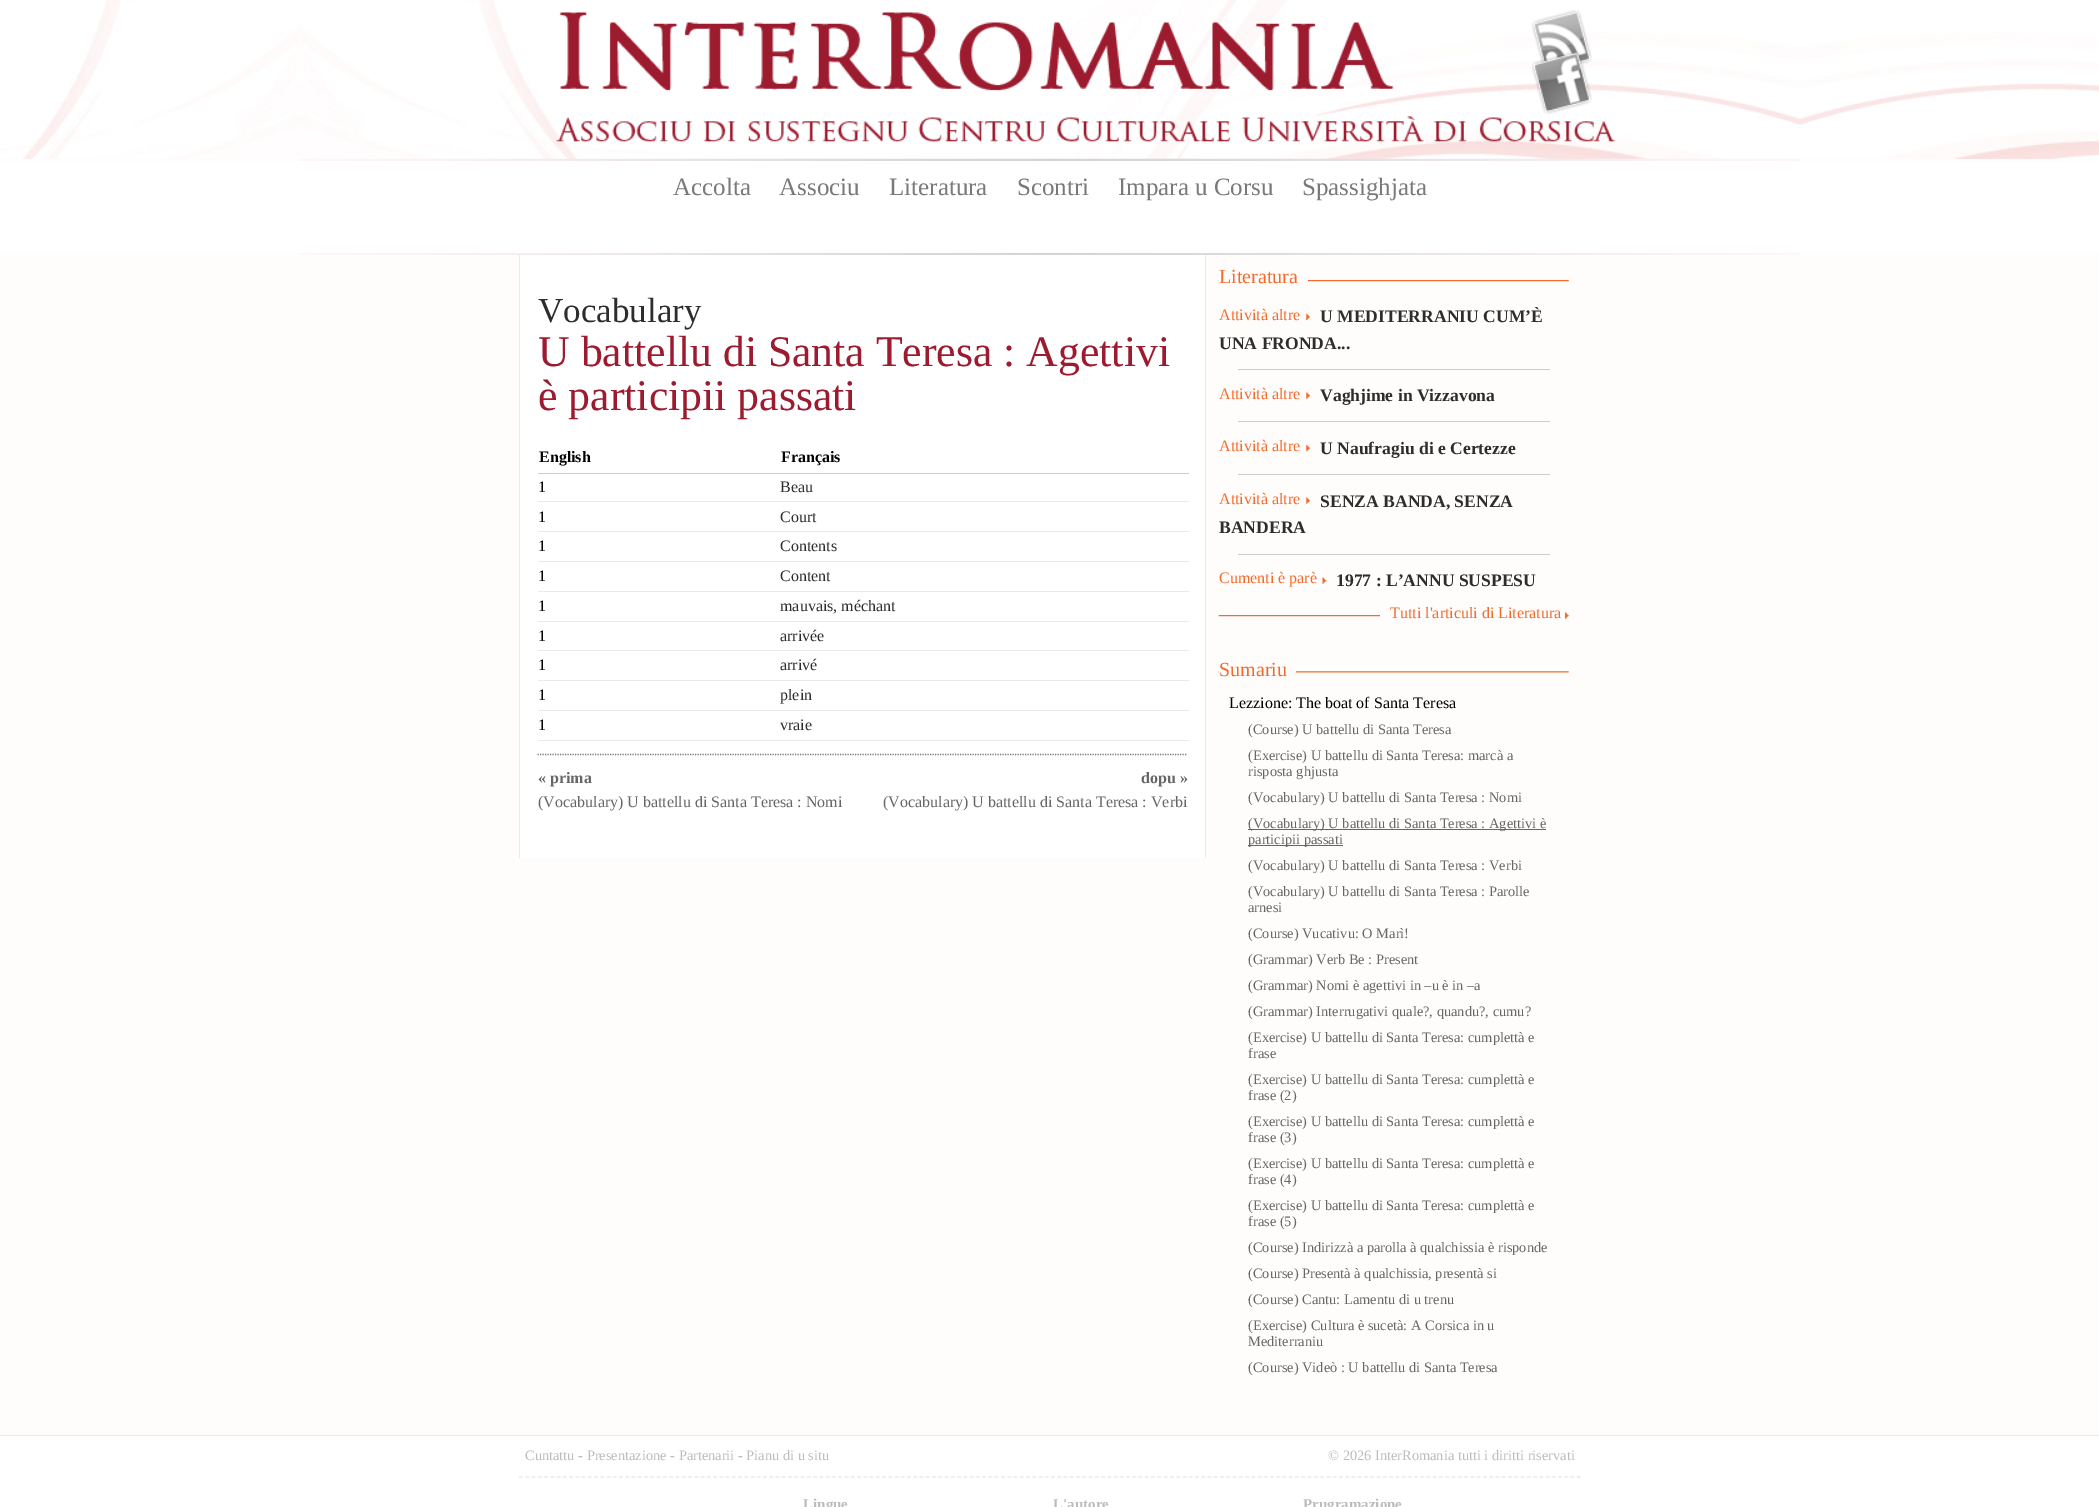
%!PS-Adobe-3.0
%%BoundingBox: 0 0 2099 1507
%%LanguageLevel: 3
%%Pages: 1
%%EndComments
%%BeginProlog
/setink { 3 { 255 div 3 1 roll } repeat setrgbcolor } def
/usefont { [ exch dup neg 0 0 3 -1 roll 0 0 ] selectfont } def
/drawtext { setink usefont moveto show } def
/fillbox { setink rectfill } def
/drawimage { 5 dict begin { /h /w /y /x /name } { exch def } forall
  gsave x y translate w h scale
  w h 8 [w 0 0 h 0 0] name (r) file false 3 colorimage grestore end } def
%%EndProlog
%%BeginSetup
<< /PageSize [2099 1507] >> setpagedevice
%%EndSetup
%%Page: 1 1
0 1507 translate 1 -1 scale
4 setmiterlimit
0 0 2099 1507 255 253 252 fillbox
(assets/img1.rgb) 0 0 2099 159 drawimage
(assets/img4.rgb) 556 12 1060 131 drawimage
(assets/img2.rgb) 1531 10 61 55 drawimage
(assets/img3.rgb) 1531 51 61 63 drawimage
(assets/img5.rgb) 300 158 1500 97 drawimage
0 161 2099 92 255 255 255 fillbox
(Accolta) 673 195 /LiberationSerif-Regular 25 121 121 121 drawtext
(Associu) 779 195 /LiberationSerif-Regular 25 121 121 121 drawtext
(Literatura) 889 195 /LiberationSerif-Regular 25 121 121 121 drawtext
(Scontri) 1017 195 /LiberationSerif-Regular 25 121 121 121 drawtext
(Impara u Corsu) 1118 195 /LiberationSerif-Regular 25 121 121 121 drawtext
(Spassighjata) 1302 195 /LiberationSerif-Regular 25 121 121 121 drawtext
520 255 685 603 255 255 255 fillbox
1205 255 1 603 234 234 234 fillbox
519 255 1 603 234 234 234 fillbox
121 121 121 setink
1.2 setlinewidth
[1.25 1.25] 0 setdash
537.5 754.5 moveto 1187.5 754.5 lineto stroke
(Vocabulary) 538 322 /LiberationSerif-Regular 35 45 45 45 drawtext
(U battellu di Santa Teresa : Agettivi) 538 366 /LiberationSerif-Regular 43.75 157 27 46 drawtext
(è participii passati) 538 410 /LiberationSerif-Regular 43.75 157 27 46 drawtext
(English) 539 462 /LiberationSerif-Bold 16 0 0 0 drawtext
(Français) 781 462 /LiberationSerif-Bold 16 0 0 0 drawtext
538 473 651 1 204 204 204 fillbox
(1) 538 492 /LiberationSerif-Regular 16 0 0 0 drawtext
538 501 651 1 234 234 234 fillbox
(Beau) 780 492 /LiberationSerif-Regular 16 45 45 45 drawtext
(1) 538 522 /LiberationSerif-Regular 16 0 0 0 drawtext
538 531 651 1 234 234 234 fillbox
(Court) 780 522 /LiberationSerif-Regular 16 45 45 45 drawtext
(1) 538 551 /LiberationSerif-Regular 16 0 0 0 drawtext
538 561 651 1 234 234 234 fillbox
(Contents) 780 551 /LiberationSerif-Regular 16 45 45 45 drawtext
(1) 538 581 /LiberationSerif-Regular 16 0 0 0 drawtext
538 591 651 1 234 234 234 fillbox
(Content) 780 581 /LiberationSerif-Regular 16 45 45 45 drawtext
(1) 538 611 /LiberationSerif-Regular 16 0 0 0 drawtext
538 621 651 1 234 234 234 fillbox
(mauvais, méchant) 780 611 /LiberationSerif-Regular 16 45 45 45 drawtext
(1) 538 641 /LiberationSerif-Regular 16 0 0 0 drawtext
538 650 651 1 234 234 234 fillbox
(arrivée) 780 641 /LiberationSerif-Regular 16 45 45 45 drawtext
(1) 538 670 /LiberationSerif-Regular 16 0 0 0 drawtext
538 680 651 1 234 234 234 fillbox
(arrivé) 780 670 /LiberationSerif-Regular 16 45 45 45 drawtext
(1) 538 700 /LiberationSerif-Regular 16 0 0 0 drawtext
538 710 651 1 234 234 234 fillbox
(plein) 780 700 /LiberationSerif-Regular 16 45 45 45 drawtext
(1) 538 730 /LiberationSerif-Regular 16 0 0 0 drawtext
538 740 651 1 234 234 234 fillbox
(vraie) 780 730 /LiberationSerif-Regular 16 45 45 45 drawtext
(« prima) 538 783 /LiberationSerif-Bold 16 102 102 102 drawtext
(\(Vocabulary\) U battellu di Santa Teresa : Nomi) 538 807 /LiberationSerif-Regular 16 102 102 102 drawtext
(dopu ») 1141 783 /LiberationSerif-Bold 16 102 102 102 drawtext
(\(Vocabulary\) U battellu di Santa Teresa : Verbi) 883 807 /LiberationSerif-Regular 16 102 102 102 drawtext
(assets/img6.rgb) 1218 280 351 2 drawimage
1219 280 89 2 255 253 252 fillbox
(Literatura) 1219 283 /LiberationSerif-Regular 20 242 107 43 drawtext
(U MEDITERRANIU CUM’È) 1320 322 /LiberationSerif-Bold 17.6 45 45 45 drawtext
(UNA FRONDA...) 1219 349 /LiberationSerif-Bold 17.6 45 45 45 drawtext
(Attività altre) 1219 320 /LiberationSerif-Regular 16 242 107 43 drawtext
(assets/img7.rgb) 1306 313 4 7 drawimage
1238 369 312 1 204 204 204 fillbox
(Attività altre) 1219 399 /LiberationSerif-Regular 16 242 107 43 drawtext
(assets/img8.rgb) 1306 392 4 7 drawimage
(Vaghjime in Vizzavona) 1320 401 /LiberationSerif-Bold 17.6 45 45 45 drawtext
1238 421 312 1 204 204 204 fillbox
(Attività altre) 1219 451 /LiberationSerif-Regular 16 242 107 43 drawtext
(assets/img9.rgb) 1306 445 4 7 drawimage
(U Naufragiu di e Certezze) 1320 454 /LiberationSerif-Bold 17.6 45 45 45 drawtext
1238 474 312 1 204 204 204 fillbox
(Attività altre) 1219 504 /LiberationSerif-Regular 16 242 107 43 drawtext
(assets/img8.rgb) 1306 497 4 7 drawimage
(SENZA BANDA, SENZA) 1320 507 /LiberationSerif-Bold 17.6 45 45 45 drawtext
(BANDERA) 1219 533 /LiberationSerif-Bold 17.6 45 45 45 drawtext
1238 554 312 1 204 204 204 fillbox
(Cumenti è parè) 1219 583 /LiberationSerif-Regular 16 242 107 43 drawtext
(assets/img10.rgb) 1322 577 5 7 drawimage
(1977 : L’ANNU SUSPESU) 1336 586 /LiberationSerif-Bold 17.6 45 45 45 drawtext
(assets/img11.rgb) 1218 615 162 2 drawimage
(Tutti l'articuli di Literatura) 1390 618 /LiberationSerif-Regular 16 242 107 43 drawtext
(assets/img12.rgb) 1565 612 4 7 drawimage
(assets/img13.rgb) 1218 671 351 2 drawimage
1219 671 77 2 255 253 252 fillbox
(Sumariu) 1219 676 /LiberationSerif-Regular 20 242 107 43 drawtext
(Lezzione: The boat of Santa Teresa) 1229 708 /LiberationSerif-Regular 16 0 0 0 drawtext
(\(Course\) U battellu di Santa Teresa) 1248 734 /LiberationSerif-Regular 14.4 102 102 102 drawtext
(\(Exercise\) U battellu di Santa Teresa: marcà a) 1248 760 /LiberationSerif-Regular 14.4 102 102 102 drawtext
(risposta ghjusta) 1248 776 /LiberationSerif-Regular 14.4 102 102 102 drawtext
(\(Vocabulary\) U battellu di Santa Teresa : Nomi) 1248 802 /LiberationSerif-Regular 14.4 102 102 102 drawtext
1248 829 298 1 102 102 102 fillbox
(\(Vocabulary\) U battellu di Santa Teresa : Agettivi è) 1248 828 /LiberationSerif-Regular 14.4 102 102 102 drawtext
1248 845 95 1 102 102 102 fillbox
(participii passati) 1248 844 /LiberationSerif-Regular 14.4 102 102 102 drawtext
(\(Vocabulary\) U battellu di Santa Teresa : Verbi) 1248 870 /LiberationSerif-Regular 14.4 102 102 102 drawtext
(\(Vocabulary\) U battellu di Santa Teresa : Parolle) 1248 896 /LiberationSerif-Regular 14.4 102 102 102 drawtext
(arnesi) 1248 912 /LiberationSerif-Regular 14.4 102 102 102 drawtext
(\(Course\) Vucativu: O Marì!) 1248 938 /LiberationSerif-Regular 14.4 102 102 102 drawtext
(\(Grammar\) Verb Be : Present) 1248 964 /LiberationSerif-Regular 14.4 102 102 102 drawtext
(\(Grammar\) Nomi è agettivi in –u è in –a) 1248 990 /LiberationSerif-Regular 14.4 102 102 102 drawtext
(\(Grammar\) Interrugativi quale?, quandu?, cumu?) 1248 1016 /LiberationSerif-Regular 14.4 102 102 102 drawtext
(\(Exercise\) U battellu di Santa Teresa: cumplettà e) 1248 1042 /LiberationSerif-Regular 14.4 102 102 102 drawtext
(frase) 1248 1058 /LiberationSerif-Regular 14.4 102 102 102 drawtext
(\(Exercise\) U battellu di Santa Teresa: cumplettà e) 1248 1084 /LiberationSerif-Regular 14.4 102 102 102 drawtext
(frase \(2\)) 1248 1100 /LiberationSerif-Regular 14.4 102 102 102 drawtext
(\(Exercise\) U battellu di Santa Teresa: cumplettà e) 1248 1126 /LiberationSerif-Regular 14.4 102 102 102 drawtext
(frase \(3\)) 1248 1142 /LiberationSerif-Regular 14.4 102 102 102 drawtext
(\(Exercise\) U battellu di Santa Teresa: cumplettà e) 1248 1168 /LiberationSerif-Regular 14.4 102 102 102 drawtext
(frase \(4\)) 1248 1184 /LiberationSerif-Regular 14.4 102 102 102 drawtext
(\(Exercise\) U battellu di Santa Teresa: cumplettà e) 1248 1210 /LiberationSerif-Regular 14.4 102 102 102 drawtext
(frase \(5\)) 1248 1226 /LiberationSerif-Regular 14.4 102 102 102 drawtext
(\(Course\) Indirizzà a parolla à qualchissia è risponde) 1248 1252 /LiberationSerif-Regular 14.4 102 102 102 drawtext
(\(Course\) Presentà à qualchissia, presentà si) 1248 1278 /LiberationSerif-Regular 14.4 102 102 102 drawtext
(\(Course\) Cantu: Lamentu di u trenu) 1248 1304 /LiberationSerif-Regular 14.4 102 102 102 drawtext
(\(Exercise\) Cultura è sucetà: A Corsica in u) 1248 1330 /LiberationSerif-Regular 14.4 102 102 102 drawtext
(Mediterraniu) 1248 1346 /LiberationSerif-Regular 14.4 102 102 102 drawtext
(\(Course\) Videò : U battellu di Santa Teresa) 1248 1372 /LiberationSerif-Regular 14.4 102 102 102 drawtext
0 1436 2099 71 255 255 255 fillbox
0 1435 2099 1 234 234 234 fillbox
[3.75 2.51] 0 setdash
519 1477 moveto 1581 1477 lineto stroke
(Cuntattu - Presentazione - Partenarii - Pianu di u situ) 525 1460 /LiberationSerif-Regular 14.4 188 188 188 drawtext
(© 2026 InterRomania tutti i diritti riservati) 1328 1460 /LiberationSerif-Regular 14.4 188 188 188 drawtext
(Lingue) 803 1509 /LiberationSerif-Bold 15 188 188 188 drawtext
(L'autore) 1053 1509 /LiberationSerif-Bold 15 188 188 188 drawtext
(Prugramazione) 1303 1509 /LiberationSerif-Bold 15 188 188 188 drawtext
showpage
%%EOF
